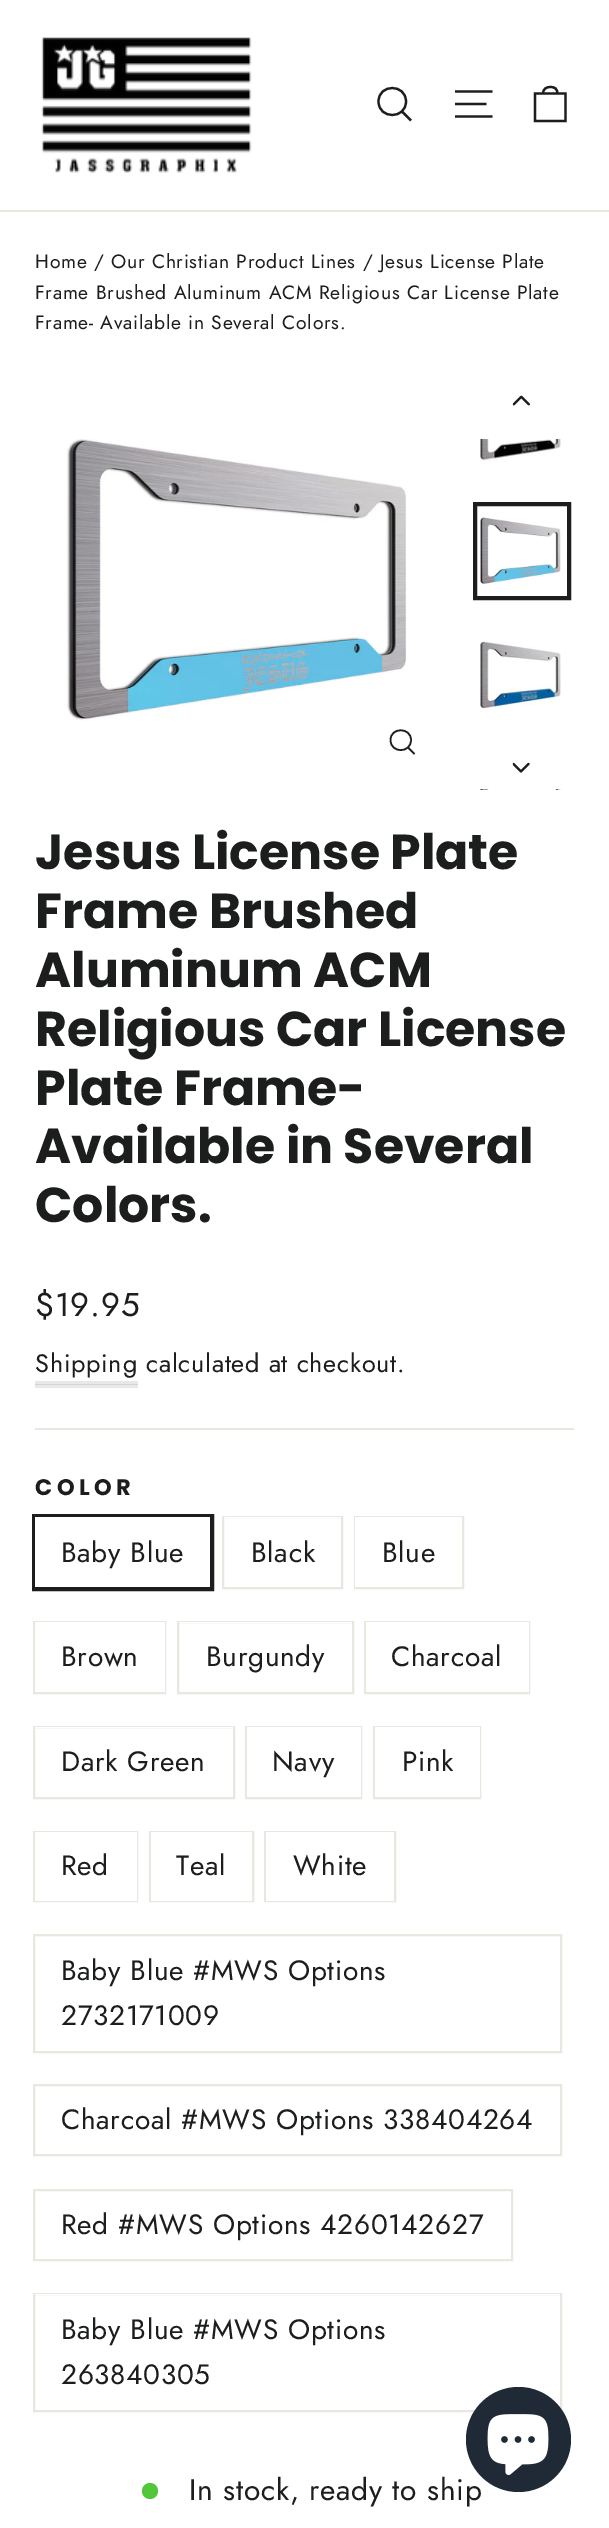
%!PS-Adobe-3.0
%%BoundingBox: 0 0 609 2528
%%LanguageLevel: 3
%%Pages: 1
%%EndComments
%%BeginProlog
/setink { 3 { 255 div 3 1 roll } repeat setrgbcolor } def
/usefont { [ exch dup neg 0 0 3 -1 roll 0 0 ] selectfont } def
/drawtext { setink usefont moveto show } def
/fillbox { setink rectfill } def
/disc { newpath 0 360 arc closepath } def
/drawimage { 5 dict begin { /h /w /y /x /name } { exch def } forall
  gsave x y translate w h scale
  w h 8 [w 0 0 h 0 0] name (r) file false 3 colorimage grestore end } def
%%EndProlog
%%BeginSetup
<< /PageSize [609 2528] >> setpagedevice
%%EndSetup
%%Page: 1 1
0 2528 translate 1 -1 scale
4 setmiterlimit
0 0 609 2528 255 255 255 fillbox
35 1385 103 3 232 232 232 fillbox
0 210 609 2 232 232 225 fillbox
(assets/img1.rgb) 41 37 211 136 drawimage
28 29 29 setink
2.2 setlinewidth
406 101.5 moveto 406 119.5 378.5 119.5 378.5 101.5 curveto 378.5 83.5 406 83.5 406 101.5 curveto closepath 411 120.5 moveto 402 111.5 lineto stroke
455 91.5 moveto 492.5 91.5 lineto 455 104 moveto 486.5 104 lineto 455 116.5 moveto 492.5 116.5 lineto stroke
535 93.5 moveto 565.5 93.5 lineto 565.5 121 lineto 535 121 lineto closepath 543 94 moveto 543 88.5 546.5 87 550.5 87 curveto 554.5 87 557.5 88.5 557.5 94 curveto stroke
/Jost-Regular 19.25 usefont
35 268 moveto 0.75 0 (Home / Our Christian Product Lines / Jesus License Plate) ashow
35 299 moveto 0.75 0 (Frame Brushed Aluminum ACM Religious Car License Plate) ashow
35 329 moveto 0.75 0 (Frame- Available in Several Colors.) ashow
(assets/img2.rgb) 66 439 341 282 drawimage
1.6 setlinewidth
411 740 moveto 411 753.5 390.5 753.5 390.5 740 curveto 390.5 727 411 727 411 740 curveto closepath 414.5 754 moveto 408 747.5 lineto stroke
(assets/img3.rgb) 512 395 18 11 drawimage
(assets/img4.rgb) 480 439 81 22 drawimage
(assets/img5.rgb) 480 517 81 67 drawimage
4 setlinewidth
475 504 94 94 rectstroke
(assets/img6.rgb) 480 641 81 70 drawimage
(assets/img7.rgb) 480 789 81 1 drawimage
(assets/img8.rgb) 512 762 18 11 drawimage
(Jesus License Plate) 35 869 /Poppins-Bold 49 28 29 29 drawtext
(Frame Brushed) 35 928 /Poppins-Bold 49 28 29 29 drawtext
(Aluminum ACM) 35 987 /Poppins-Bold 49 28 29 29 drawtext
(Religious Car License) 35 1046 /Poppins-Bold 49 28 29 29 drawtext
(Plate Frame-) 35 1105 /Poppins-Bold 49 28 29 29 drawtext
(Available in Several) 35 1163 /Poppins-Bold 49 28 29 29 drawtext
(Colors.) 35 1222 /Poppins-Bold 49 28 29 29 drawtext
/Jost-Regular 33 usefont
35 1316 moveto 0.75 0 ($19.95) ashow
/Jost-Regular 25.25 usefont
35 1372 moveto 0.75 0 (Shipping) ashow
35 1381 103 3 232 232 232 fillbox
35 1384 103 1 212 212 212 fillbox
28 29 29 setink
146 1372 moveto 0.75 0 (calculated at checkout.) ashow
35 1428 539 2 232 232 225 fillbox
/Poppins-Bold 22.5 usefont
28 29 29 setink
35 1495 moveto 4.5 0 (COLOR) ashow
34 1516 178 73 rectstroke
35 1517 175 70 255 255 255 fillbox
/Jost-Regular 28 usefont
28 29 29 setink
61 1562 moveto 0.7 0 (Baby Blue) ashow
232 232 225 setink
2 setlinewidth
223 1517 119 71 rectstroke
224 1517 117 1 255 255 255 fillbox
28 29 29 setink
251 1562 moveto 0.7 0 (Black) ashow
232 232 225 setink
355 1517 108 71 rectstroke
355 1517 107 70 255 255 255 fillbox
28 29 29 setink
382 1562 moveto 0.7 0 (Blue) ashow
232 232 225 setink
34 1622 131 71 rectstroke
35 1622 130 70 255 255 255 fillbox
28 29 29 setink
61 1666 moveto 0.7 0 (Brown) ashow
232 232 225 setink
178 1622 175 71 rectstroke
179 1622 173 1 255 255 255 fillbox
28 29 29 setink
206 1666 moveto 0.7 0 (Burgundy) ashow
232 232 225 setink
365 1622 164 71 rectstroke
366 1622 163 70 255 255 255 fillbox
28 29 29 setink
391 1666 moveto 0.7 0 (Charcoal) ashow
232 232 225 setink
34 1727 200 71 rectstroke
35 1727 198 1 255 255 255 fillbox
28 29 29 setink
61 1771 moveto 0.7 0 (Dark Green) ashow
232 232 225 setink
246 1727 115 71 rectstroke
247 1727 114 70 255 255 255 fillbox
28 29 29 setink
272 1771 moveto 0.7 0 (Navy) ashow
232 232 225 setink
374 1727 106 71 rectstroke
375 1727 105 70 255 255 255 fillbox
28 29 29 setink
402 1771 moveto 0.7 0 (Pink) ashow
232 232 225 setink
34 1832 103 69 rectstroke
35 1832 102 69 255 255 255 fillbox
28 29 29 setink
61 1875 moveto 0.7 0 (Red) ashow
232 232 225 setink
150 1832 103 69 rectstroke
151 1832 101 69 255 255 255 fillbox
28 29 29 setink
176 1875 moveto 0.7 0 (Teal) ashow
232 232 225 setink
265 1832 130 69 rectstroke
266 1832 128 69 255 255 255 fillbox
28 29 29 setink
293 1875 moveto 0.7 0 (White) ashow
232 232 225 setink
34 1935 527 117 rectstroke
28 29 29 setink
61 1980 moveto 0.7 0 (Baby Blue #MWS Options) ashow
61 2025 moveto 0.7 0 (2732171009) ashow
232 232 225 setink
34 2085 527 70 rectstroke
28 29 29 setink
61 2129 moveto 0.7 0 (Charcoal #MWS Options 338404264) ashow
232 232 225 setink
34 2190 478 70 rectstroke
28 29 29 setink
61 2234 moveto 0.7 0 (Red #MWS Options 4260142627) ashow
232 232 225 setink
34 2294 527 117 rectstroke
35 2294 525 1 255 255 255 fillbox
28 29 29 setink
61 2339 moveto 0.7 0 (Baby Blue #MWS Options) ashow
61 2384 moveto 0.7 0 (263840305) ashow
84 198 58 setink
150 2491 8 disc fill
/Jost-Regular 29.75 usefont
28 29 29 setink
189 2500 moveto 0.75 0 (In stock, ready to ship) ashow
32 42 54 setink
518.5 2439.5 52.5 disc fill
(assets/img9.rgb) 487 2414 62 61 drawimage
showpage
%%EOF
